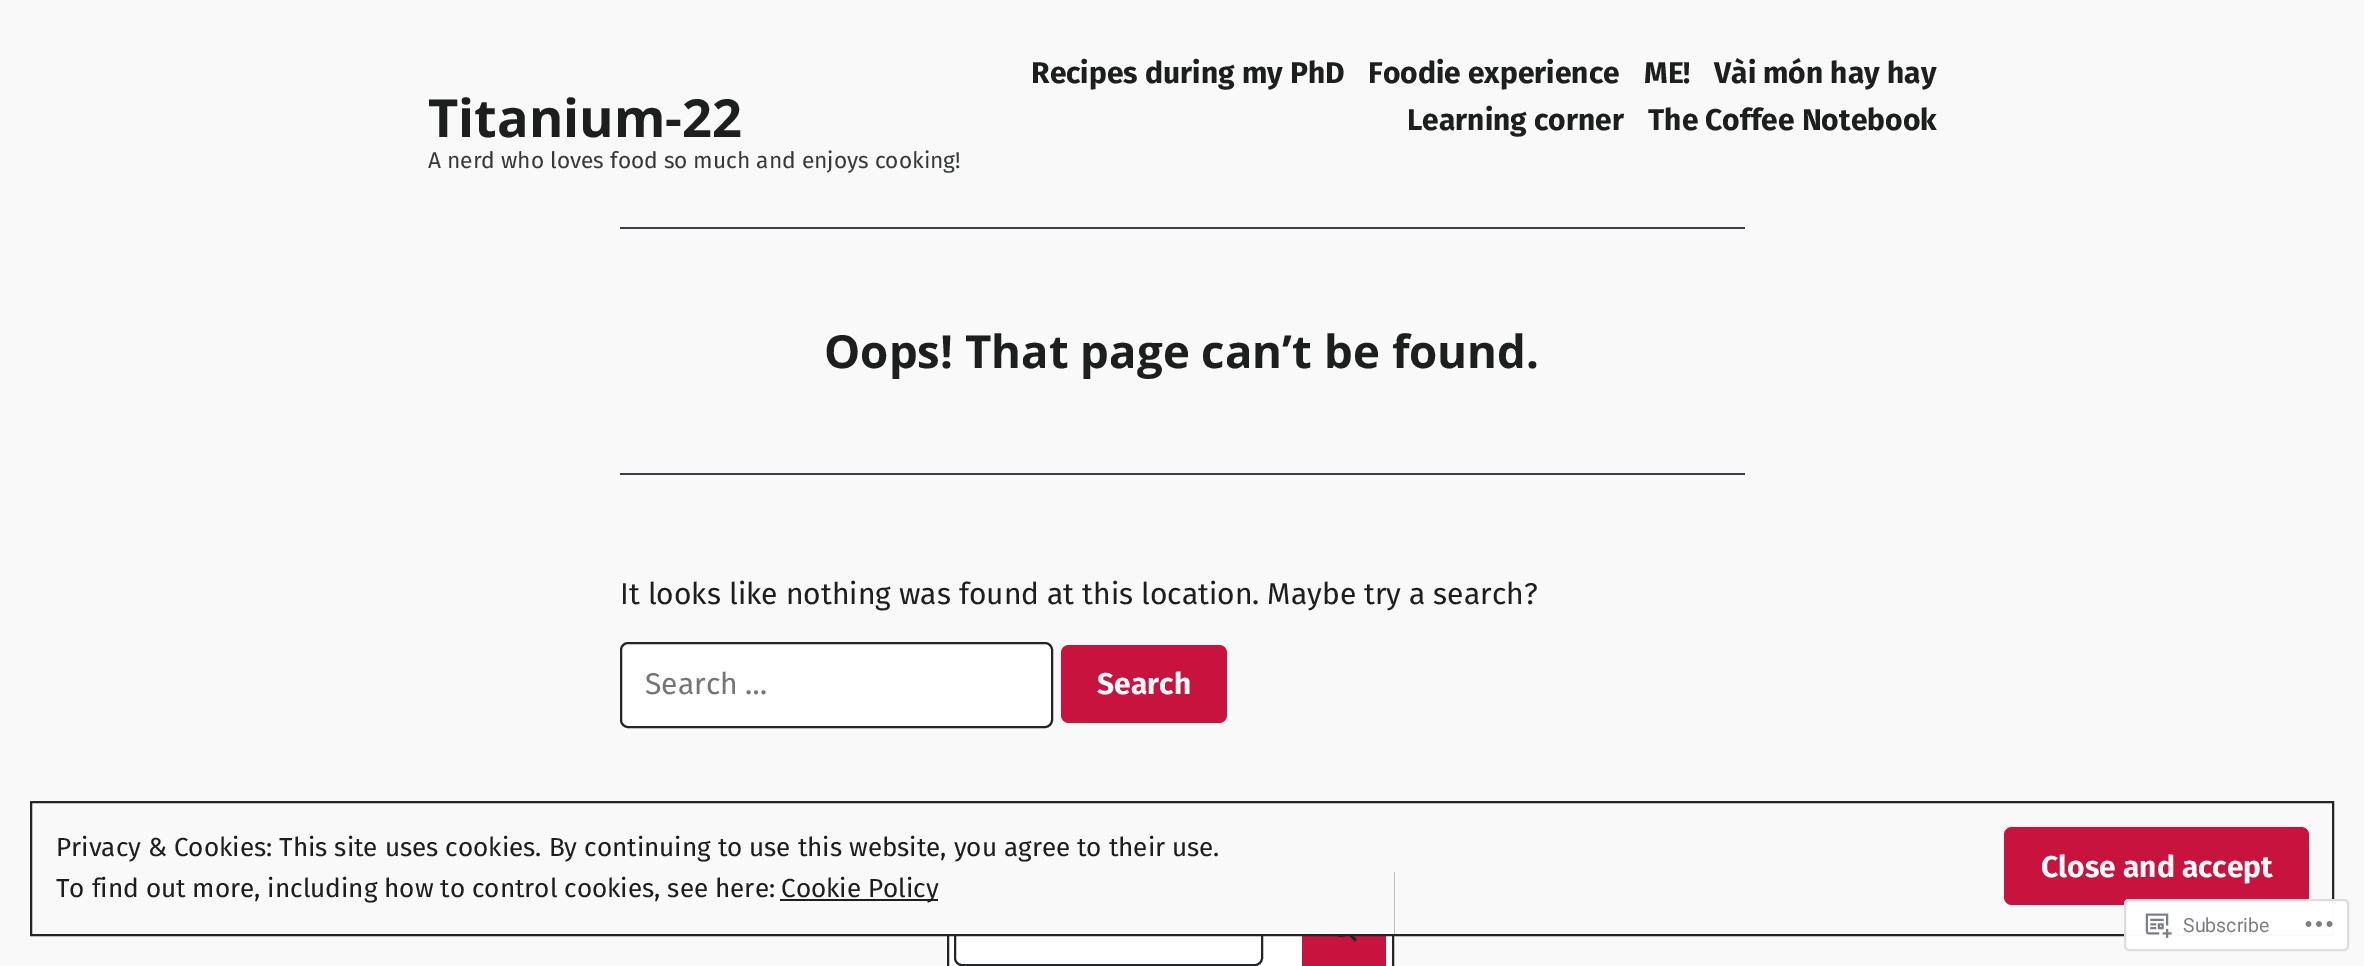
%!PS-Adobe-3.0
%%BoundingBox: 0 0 2364 966
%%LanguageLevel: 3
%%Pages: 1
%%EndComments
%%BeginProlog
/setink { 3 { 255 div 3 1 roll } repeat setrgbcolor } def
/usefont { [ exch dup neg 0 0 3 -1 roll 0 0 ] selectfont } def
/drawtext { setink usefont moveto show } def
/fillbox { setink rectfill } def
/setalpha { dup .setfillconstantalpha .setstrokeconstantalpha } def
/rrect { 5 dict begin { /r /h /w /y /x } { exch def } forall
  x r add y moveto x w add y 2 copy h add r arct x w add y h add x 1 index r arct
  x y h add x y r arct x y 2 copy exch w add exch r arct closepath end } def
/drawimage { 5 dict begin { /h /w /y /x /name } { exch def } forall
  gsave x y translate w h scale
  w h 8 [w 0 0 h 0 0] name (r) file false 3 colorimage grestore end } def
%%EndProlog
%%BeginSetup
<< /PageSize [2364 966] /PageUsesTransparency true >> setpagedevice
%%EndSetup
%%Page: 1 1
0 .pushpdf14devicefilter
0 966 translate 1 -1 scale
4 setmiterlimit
0 0 2364 966 249 249 249 fillbox
(Titanium-22) 428 137 /OpenSans-Bold 52.5 29 30 30 drawtext
(Recipes during my PhD) 1031 83 /FiraSans-Bold 30 29 30 30 drawtext
(Foodie experience) 1368 83 /FiraSans-Bold 30 29 30 30 drawtext
(ME!) 1644 83 /FiraSans-Bold 30 29 30 30 drawtext
(Vài món hay hay) 1714 83 /FiraSans-Bold 30 29 30 30 drawtext
(Learning corner) 1407 130 /FiraSans-Bold 30 29 30 30 drawtext
(The Coffee Notebook) 1648 130 /FiraSans-Bold 30 29 30 30 drawtext
(A nerd who loves food so much and enjoys cooking!) 428 168 /FiraSans-Regular 22.7 54 57 57 drawtext
620 227 1125 2 60 63 69 fillbox
(Oops! That page can’t be found.) 824 368 /OpenSans-Bold 45.6 29 30 30 drawtext
620 473 1125 2 60 63 69 fillbox
(It looks like nothing was found at this location. Maybe try a search?) 620 604 /FiraSans-Regular 30 29 30 30 drawtext
255 255 255 setink
621 643 431 84 7 rrect gsave fill grestore
36 37 39 setink
2 setlinewidth
stroke
(Search …) 645 694 /FiraSans-Regular 30 117 117 117 drawtext
200 19 62 setink
1061 645 166 78 8 rrect fill
(Search) 1097 694 /FiraSans-Bold 30 249 249 249 drawtext
949 936 443 30 255 255 255 fillbox
36 37 39 setink
948 873 445 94 rectstroke
955 880 307 85 7 rrect stroke
200 19 62 setink
1378 878 moveto 1310 878 lineto 1305 878 1302 882 1302 886 curveto 1302 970 lineto 1302 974 1305 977 1310 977 curveto 1378 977 lineto 1383 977 1386 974 1386 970 curveto 1386 886 lineto 1386 882 1383 878 1378 878 curveto closepath fill
(assets/img1.rgb) 1337 936 20 6 drawimage
947 872 447 62 249 249 249 fillbox
36 37 39 setink
31 802 2302 133 rectstroke
(Privacy & Cookies: This site uses cookies. By continuing to use this website, you agree to their use.) 56 856 /FiraSans-Regular 26.1 29 30 30 drawtext
200 19 62 setink
2004 827 305 78 8 rrect fill
(Close and accept) 2041 877 /FiraSans-Bold 30 249 249 249 drawtext
(To find out more, including how to control cookies, see here:) 56 897 /FiraSans-Regular 26.1 29 30 30 drawtext
780 899 158 2 29 30 30 fillbox
(Cookie Policy) 781 897 /FiraSans-Regular 26.1 29 30 30 drawtext
0.98 setalpha
255 255 255 setink
2124 899 225 52 5 rrect fill
220 220 222 setink
2125 900 223 50 4 rrect stroke
1 setalpha
(assets/img2.rgb) 2145 913 27 25 drawimage
(Subscribe) 2183 932 /Roboto-Regular 19.5 123 127 132 drawtext
(assets/img3.rgb) 2305 921 28 6 drawimage
.poppdf14devicefilter showpage
%%EOF
